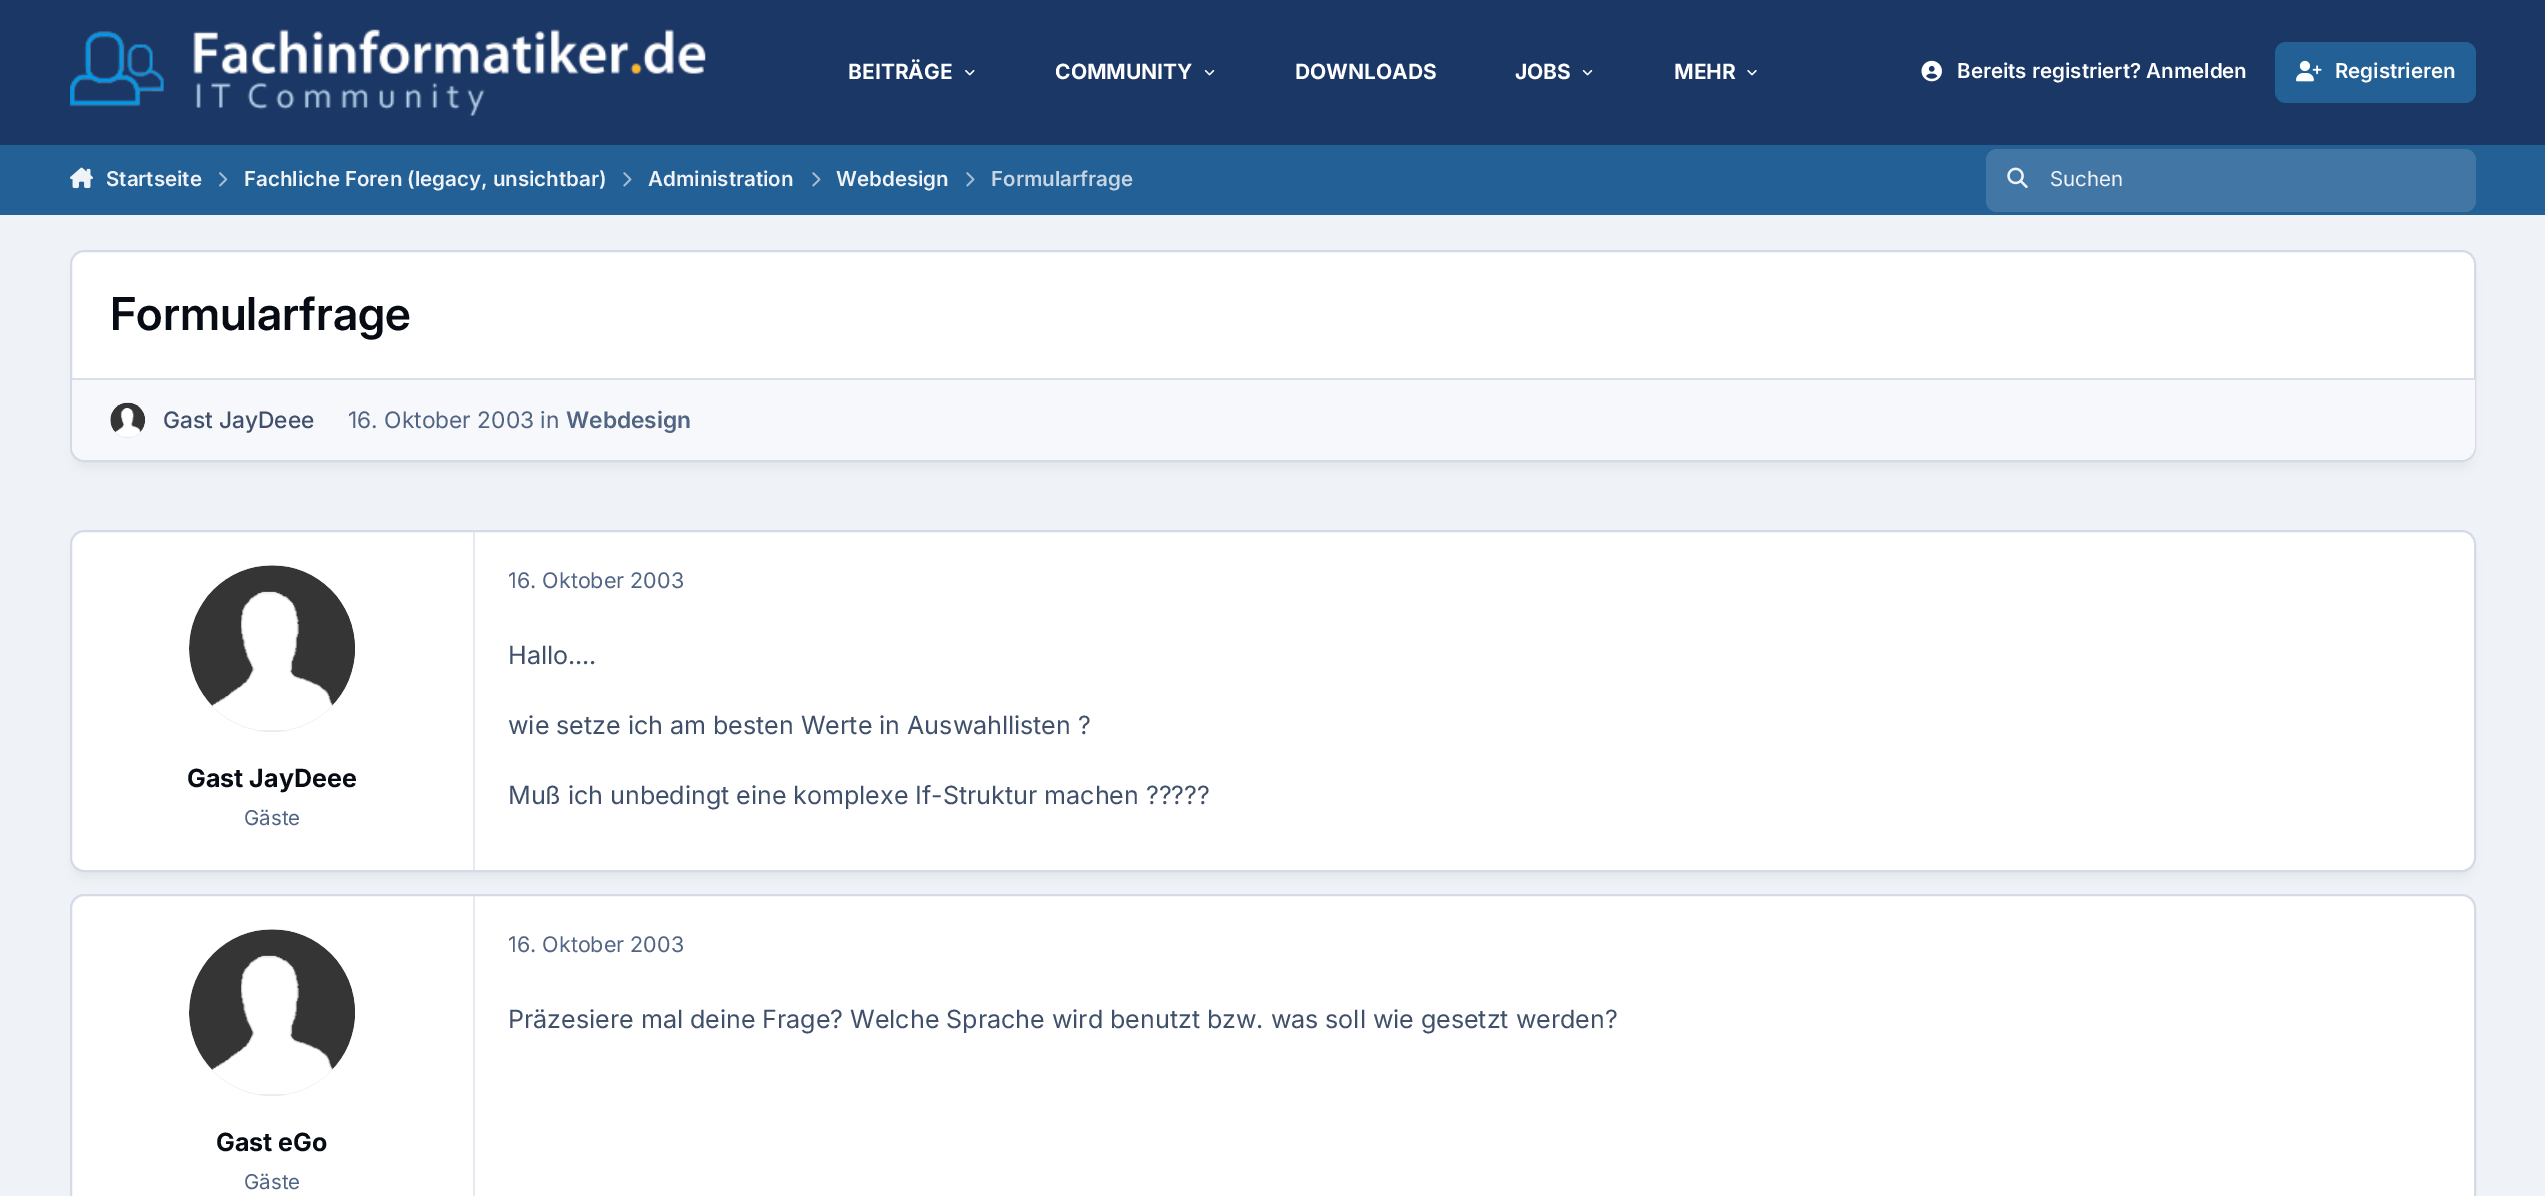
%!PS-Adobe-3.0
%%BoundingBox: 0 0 2545 1196
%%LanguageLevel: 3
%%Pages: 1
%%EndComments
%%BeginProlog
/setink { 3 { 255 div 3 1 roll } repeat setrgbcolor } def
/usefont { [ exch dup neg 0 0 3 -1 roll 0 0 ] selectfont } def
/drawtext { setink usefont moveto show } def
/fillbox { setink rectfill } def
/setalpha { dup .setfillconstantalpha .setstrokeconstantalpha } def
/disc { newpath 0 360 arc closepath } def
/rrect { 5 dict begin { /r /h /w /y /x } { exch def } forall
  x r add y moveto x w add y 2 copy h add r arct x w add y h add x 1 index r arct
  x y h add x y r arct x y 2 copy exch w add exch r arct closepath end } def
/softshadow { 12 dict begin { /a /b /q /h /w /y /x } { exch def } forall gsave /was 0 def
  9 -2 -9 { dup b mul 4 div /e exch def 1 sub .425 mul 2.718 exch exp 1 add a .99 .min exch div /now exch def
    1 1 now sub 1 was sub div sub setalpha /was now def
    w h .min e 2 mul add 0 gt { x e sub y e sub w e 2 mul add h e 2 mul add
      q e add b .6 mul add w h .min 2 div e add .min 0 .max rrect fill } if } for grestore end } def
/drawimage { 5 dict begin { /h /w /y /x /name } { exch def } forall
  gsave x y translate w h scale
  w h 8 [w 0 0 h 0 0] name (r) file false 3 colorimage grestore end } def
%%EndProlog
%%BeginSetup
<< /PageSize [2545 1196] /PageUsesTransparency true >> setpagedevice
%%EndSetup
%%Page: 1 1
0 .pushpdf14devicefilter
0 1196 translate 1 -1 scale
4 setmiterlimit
0 0 2545 1196 239 242 247 fillbox
0 0 2545 145 26 55 102 fillbox
(assets/img1.rgb) 70 29 636 87 drawimage
(BEITRÄGE) 848 79 /Inter-Bold 21 255 255 255 drawtext
(assets/img2.rgb) 965 70 10 6 drawimage
(COMMUNITY) 1055 79 /Inter-Bold 21 255 255 255 drawtext
(assets/img3.rgb) 1204 70 11 6 drawimage
(DOWNLOADS) 1295 79 /Inter-Bold 21 255 255 255 drawtext
(JOBS) 1515 79 /Inter-Bold 21 255 255 255 drawtext
(assets/img3.rgb) 1582 70 11 6 drawimage
(MEHR) 1674 79 /Inter-Bold 21 255 255 255 drawtext
(assets/img4.rgb) 1747 70 10 6 drawimage
(assets/img5.rgb) 1921 60 21 22 drawimage
(Bereits registriert? Anmelden) 1957 78 /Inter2-SemiBold 20.5 255 255 255 drawtext
34 96 150 setink
2275 42 201 61 11 rrect fill
(assets/img6.rgb) 2296 60 26 22 drawimage
(Registrieren) 2335 78 /Inter2-SemiBold 20.5 255 255 255 drawtext
0 145 2545 70 34 96 150 fillbox
(assets/img7.rgb) 70 167 23 22 drawimage
(Startseite) 106 186 /Inter2-SemiBold 20.5 239 242 247 drawtext
(assets/img8.rgb) 219 172 9 15 drawimage
(Fachliche Foren \(legacy, unsichtbar\)) 244 186 /Inter2-SemiBold 20.5 239 242 247 drawtext
(assets/img9.rgb) 623 172 9 15 drawimage
(Administration) 648 186 /Inter2-SemiBold 20.5 239 242 247 drawtext
(assets/img9.rgb) 812 172 9 15 drawimage
(Webdesign) 836 186 /Inter2-SemiBold 20.5 239 242 247 drawtext
(assets/img9.rgb) 966 172 9 15 drawimage
(Formularfrage) 991 186 /Inter2-SemiBold 20.5 198 213 228 drawtext
65 118 165 setink
1986 149 490 63 11 rrect fill
(assets/img10.rgb) 2007 167 21 21 drawimage
(Suchen) 2050 186 /Inter-Regular 20.5 239 242 247 drawtext
1 3 10 setink
75 266 2396 201 9 6 0.05 softshadow
255 255 255 setink
71 251 2404 210 13 rrect gsave fill grestore
213 219 230 setink
2 setlinewidth
stroke
(Formularfrage) 110 330 /Inter-SemiBold 45.5 6 11 20 drawtext
247 248 251 setink
72 378 moveto 2475 378 lineto 2475 446 lineto 2475 453.5 2468.5 460 2461 460 curveto 86 460 lineto 78.5 460 72 453.5 72 446 curveto closepath fill
72 378 2403 2 215 223 234 fillbox
229 234 242 setink
127.5 420.5 17.5 disc fill
(assets/img11.rgb) 110 402 35 35 drawimage
(Gast JayDeee) 163 428 /Inter-Medium 22.75 64 80 107 drawtext
(16. Oktober 2003 in) 348 428 /Inter-Regular 22.75 81 100 131 drawtext
(Webdesign) 566 428 /Inter2-SemiBold 22.75 81 100 131 drawtext
1 3 10 setink
75 546 2396 331 9 6 0.05 softshadow
255 255 255 setink
71 531 2404 340 13 rrect gsave fill grestore
213 219 230 setink
stroke
473 532 2 338 229 234 242 fillbox
189 565 166 167 83 rrect fill
(assets/img12.rgb) 189 565 166 166 drawimage
(Gast JayDeee) 187 787 /Inter-Bold 25.05 6 11 20 drawtext
(Gäste) 244 825 /Inter-Regular 20.5 81 100 131 drawtext
(16. Oktober 2003) 508 588 /Inter-Regular 21.5 81 100 131 drawtext
(Hallo....) 508 664 /Inter-Regular 25.05 64 80 107 drawtext
(wie setze ich am besten Werte in Auswahllisten ?) 508 734 /Inter-Regular 25.05 64 80 107 drawtext
508 804 moveto -0.1 0 32 (Muß ich unbedingt eine komplexe If-Struktur machen ?????) widthshow
255 255 255 setink
71 895 2404 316 13 rrect gsave fill grestore
213 219 230 setink
stroke
(16. Oktober 2003) 508 952 /Inter-Regular 21.5 81 100 131 drawtext
/Inter-Regular 25.05 usefont
64 80 107 setink
508 1028 moveto -0.1 0 32 (Präzesiere mal deine Frage? Welche Sprache wird benutzt bzw. was soll wie gesetzt werden?) widthshow
473 896 2 300 229 234 242 fillbox
189 929 166 167 83 rrect fill
(assets/img13.rgb) 189 929 166 166 drawimage
(Gast eGo) 216 1151 /Inter-Bold 25.05 6 11 20 drawtext
(Gäste) 244 1189 /Inter-Regular 20.5 81 100 131 drawtext
.poppdf14devicefilter showpage
%%EOF
